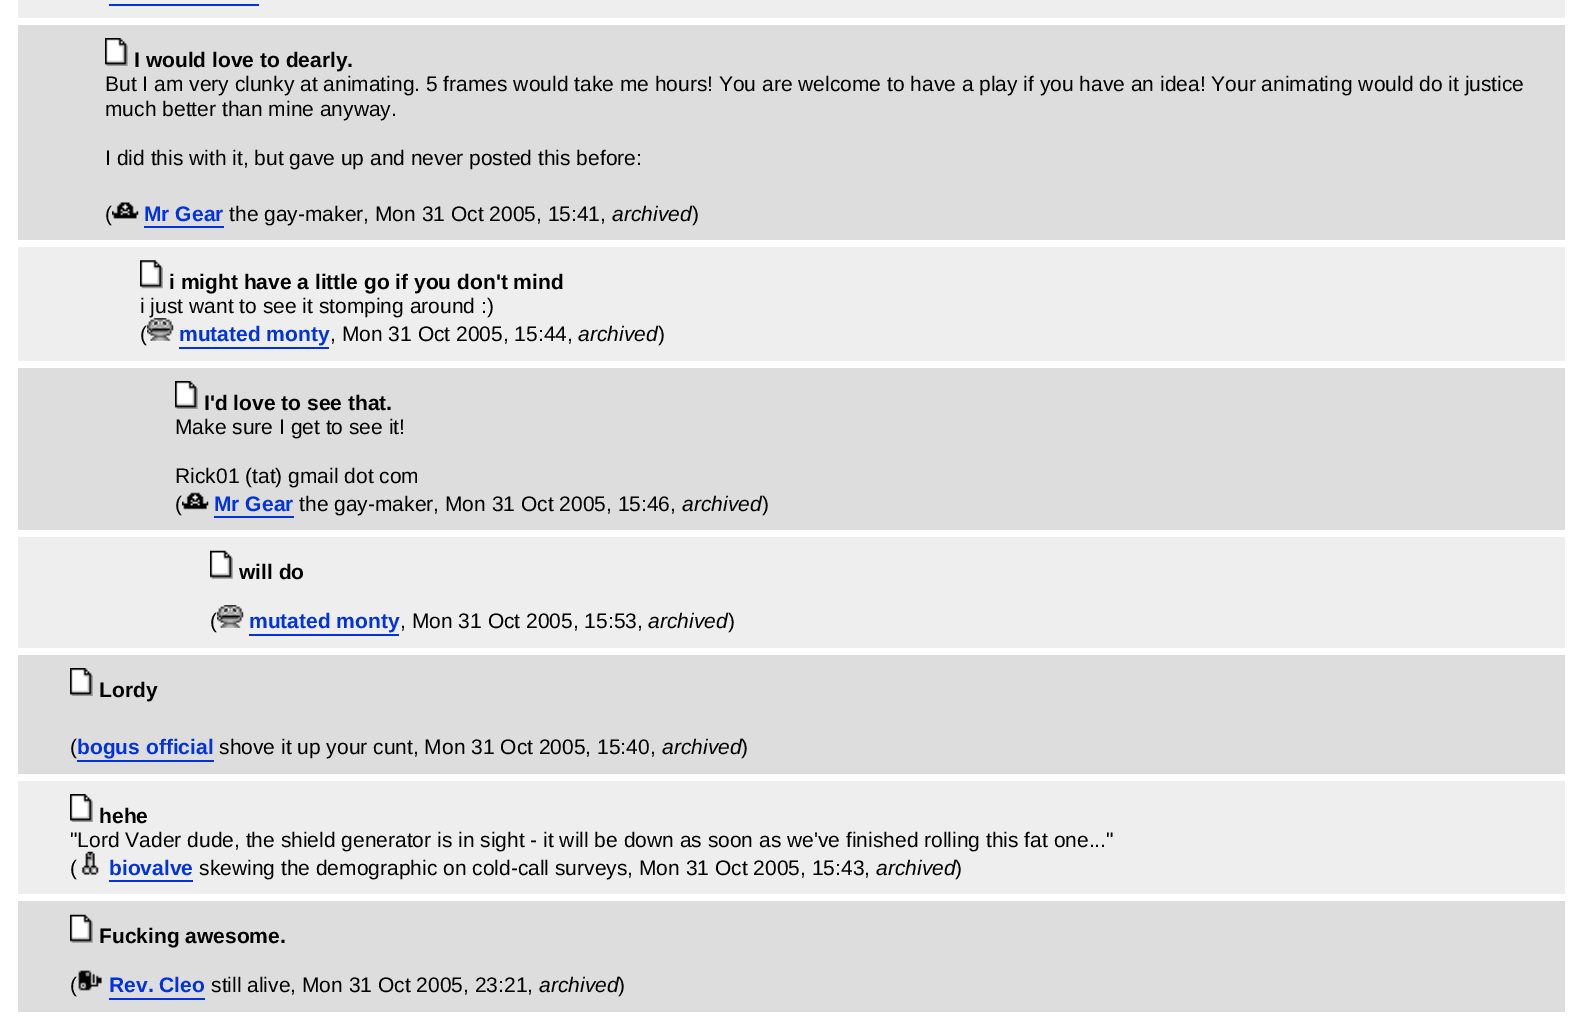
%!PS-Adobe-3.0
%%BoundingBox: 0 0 1582 1036
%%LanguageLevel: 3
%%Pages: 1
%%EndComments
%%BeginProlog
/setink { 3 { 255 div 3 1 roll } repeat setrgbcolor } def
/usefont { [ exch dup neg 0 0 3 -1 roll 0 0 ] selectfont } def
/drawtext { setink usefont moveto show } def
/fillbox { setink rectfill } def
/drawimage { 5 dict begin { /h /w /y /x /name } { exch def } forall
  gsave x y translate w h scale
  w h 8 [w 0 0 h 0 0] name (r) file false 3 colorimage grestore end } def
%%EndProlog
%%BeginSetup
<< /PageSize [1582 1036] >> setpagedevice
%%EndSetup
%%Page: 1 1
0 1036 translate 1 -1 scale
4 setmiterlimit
0 0 1582 1036 255 255 255 fillbox
18 0 1547 18 238 238 238 fillbox
109 4 150 2 0 51 221 fillbox
18 25 1547 215 221 221 221 fillbox
(assets/img1.rgb) 105 38 23 28 drawimage
(I would love to dearly.) 134 67 /LiberationSans-Bold 21 0 0 0 drawtext
(But I am very clunky at animating. 5 frames would take me hours! You are welcome to have a play if you have an idea! Your animating would do it justice) 105 91 /LiberationSans-Regular 21 0 0 0 drawtext
(much better than mine anyway.) 105 116 /LiberationSans-Regular 21 0 0 0 drawtext
(I did this with it, but gave up and never posted this before:) 105 165 /LiberationSans-Regular 21 0 0 0 drawtext
(\() 105 221 /LiberationSans-Regular 21 0 0 0 drawtext
(assets/img2.rgb) 112 202 27 17 drawimage
(Mr Gear) 144 221 /LiberationSans-Bold 21 0 51 221 drawtext
144 226 80 2 0 51 221 fillbox
(the gay-maker, Mon 31 Oct 2005, 15:41,) 229 221 /LiberationSans-Regular 21 0 0 0 drawtext
(archived) 612 221 /LiberationSans-Italic 21 0 0 0 drawtext
(\)) 692 221 /LiberationSans-Regular 21 0 0 0 drawtext
18 247 1547 114 238 238 238 fillbox
(assets/img3.rgb) 140 260 23 29 drawimage
(i might have a little go if you don't mind) 169 289 /LiberationSans-Bold 21 0 0 0 drawtext
(i just want to see it stomping around :\)) 140 313 /LiberationSans-Regular 21 0 0 0 drawtext
(\() 140 341 /LiberationSans-Regular 21 0 0 0 drawtext
(assets/img4.rgb) 147 318 27 23 drawimage
(mutated monty) 179 341 /LiberationSans-Bold 21 0 51 221 drawtext
179 347 150 2 0 51 221 fillbox
(, Mon 31 Oct 2005, 15:44,) 330 341 /LiberationSans-Regular 21 0 0 0 drawtext
(archived) 578 341 /LiberationSans-Italic 21 0 0 0 drawtext
(\)) 658 341 /LiberationSans-Regular 21 0 0 0 drawtext
18 368 1547 162 221 221 221 fillbox
(assets/img1.rgb) 175 381 23 28 drawimage
(I'd love to see that.) 204 410 /LiberationSans-Bold 21 0 0 0 drawtext
(Make sure I get to see it!) 175 434 /LiberationSans-Regular 21 0 0 0 drawtext
(Rick01 \(tat\) gmail dot com) 175 483 /LiberationSans-Regular 21 0 0 0 drawtext
(\() 175 511 /LiberationSans-Regular 21 0 0 0 drawtext
(assets/img5.rgb) 182 492 27 18 drawimage
(Mr Gear) 214 511 /LiberationSans-Bold 21 0 51 221 drawtext
214 516 80 2 0 51 221 fillbox
(the gay-maker, Mon 31 Oct 2005, 15:46,) 299 511 /LiberationSans-Regular 21 0 0 0 drawtext
(archived) 682 511 /LiberationSans-Italic 21 0 0 0 drawtext
(\)) 762 511 /LiberationSans-Regular 21 0 0 0 drawtext
18 537 1547 111 238 238 238 fillbox
(assets/img6.rgb) 210 550 23 29 drawimage
(will do) 239 579 /LiberationSans-Bold 21 0 0 0 drawtext
(\() 210 628 /LiberationSans-Regular 21 0 0 0 drawtext
(assets/img7.rgb) 217 605 27 23 drawimage
(mutated monty) 249 628 /LiberationSans-Bold 21 0 51 221 drawtext
249 634 150 2 0 51 221 fillbox
(, Mon 31 Oct 2005, 15:53,) 400 628 /LiberationSans-Regular 21 0 0 0 drawtext
(archived) 648 628 /LiberationSans-Italic 21 0 0 0 drawtext
(\)) 728 628 /LiberationSans-Regular 21 0 0 0 drawtext
18 655 1547 119 221 221 221 fillbox
(assets/img8.rgb) 70 668 23 28 drawimage
(Lordy) 99 697 /LiberationSans-Bold 21 0 0 0 drawtext
(\() 70 754 /LiberationSans-Regular 21 0 0 0 drawtext
(bogus official) 77 754 /LiberationSans-Bold 21 0 51 221 drawtext
77 760 137 2 0 51 221 fillbox
(shove it up your cunt, Mon 31 Oct 2005, 15:40,) 219 754 /LiberationSans-Regular 21 0 0 0 drawtext
(archived) 662 754 /LiberationSans-Italic 21 0 0 0 drawtext
(\)) 741 754 /LiberationSans-Regular 21 0 0 0 drawtext
18 781 1547 113 238 238 238 fillbox
(assets/img9.rgb) 70 794 23 28 drawimage
(hehe) 99 823 /LiberationSans-Bold 21 0 0 0 drawtext
("Lord Vader dude, the shield generator is in sight - it will be down as soon as we've finished rolling this fat one...") 70 847 /LiberationSans-Regular 21 0 0 0 drawtext
(\() 70 875 /LiberationSans-Regular 21 0 0 0 drawtext
(assets/img10.rgb) 81 851 18 24 drawimage
(biovalve) 109 875 /LiberationSans-Bold 21 0 51 221 drawtext
109 880 84 2 0 51 221 fillbox
(skewing the demographic on cold-call surveys, Mon 31 Oct 2005, 15:43,) 199 875 /LiberationSans-Regular 21 0 0 0 drawtext
(archived) 876 875 /LiberationSans-Italic 21 0 0 0 drawtext
(\)) 955 875 /LiberationSans-Regular 21 0 0 0 drawtext
18 901 1547 111 221 221 221 fillbox
(assets/img11.rgb) 70 914 23 29 drawimage
(Fucking awesome.) 99 943 /LiberationSans-Bold 21 0 0 0 drawtext
(\() 70 992 /LiberationSans-Regular 21 0 0 0 drawtext
(assets/img12.rgb) 78 970 24 21 drawimage
(Rev. Cleo) 109 992 /LiberationSans-Bold 21 0 51 221 drawtext
109 998 96 2 0 51 221 fillbox
(still alive, Mon 31 Oct 2005, 23:21,) 211 992 /LiberationSans-Regular 21 0 0 0 drawtext
(archived) 539 992 /LiberationSans-Italic 21 0 0 0 drawtext
(\)) 618 992 /LiberationSans-Regular 21 0 0 0 drawtext
showpage
%%EOF
